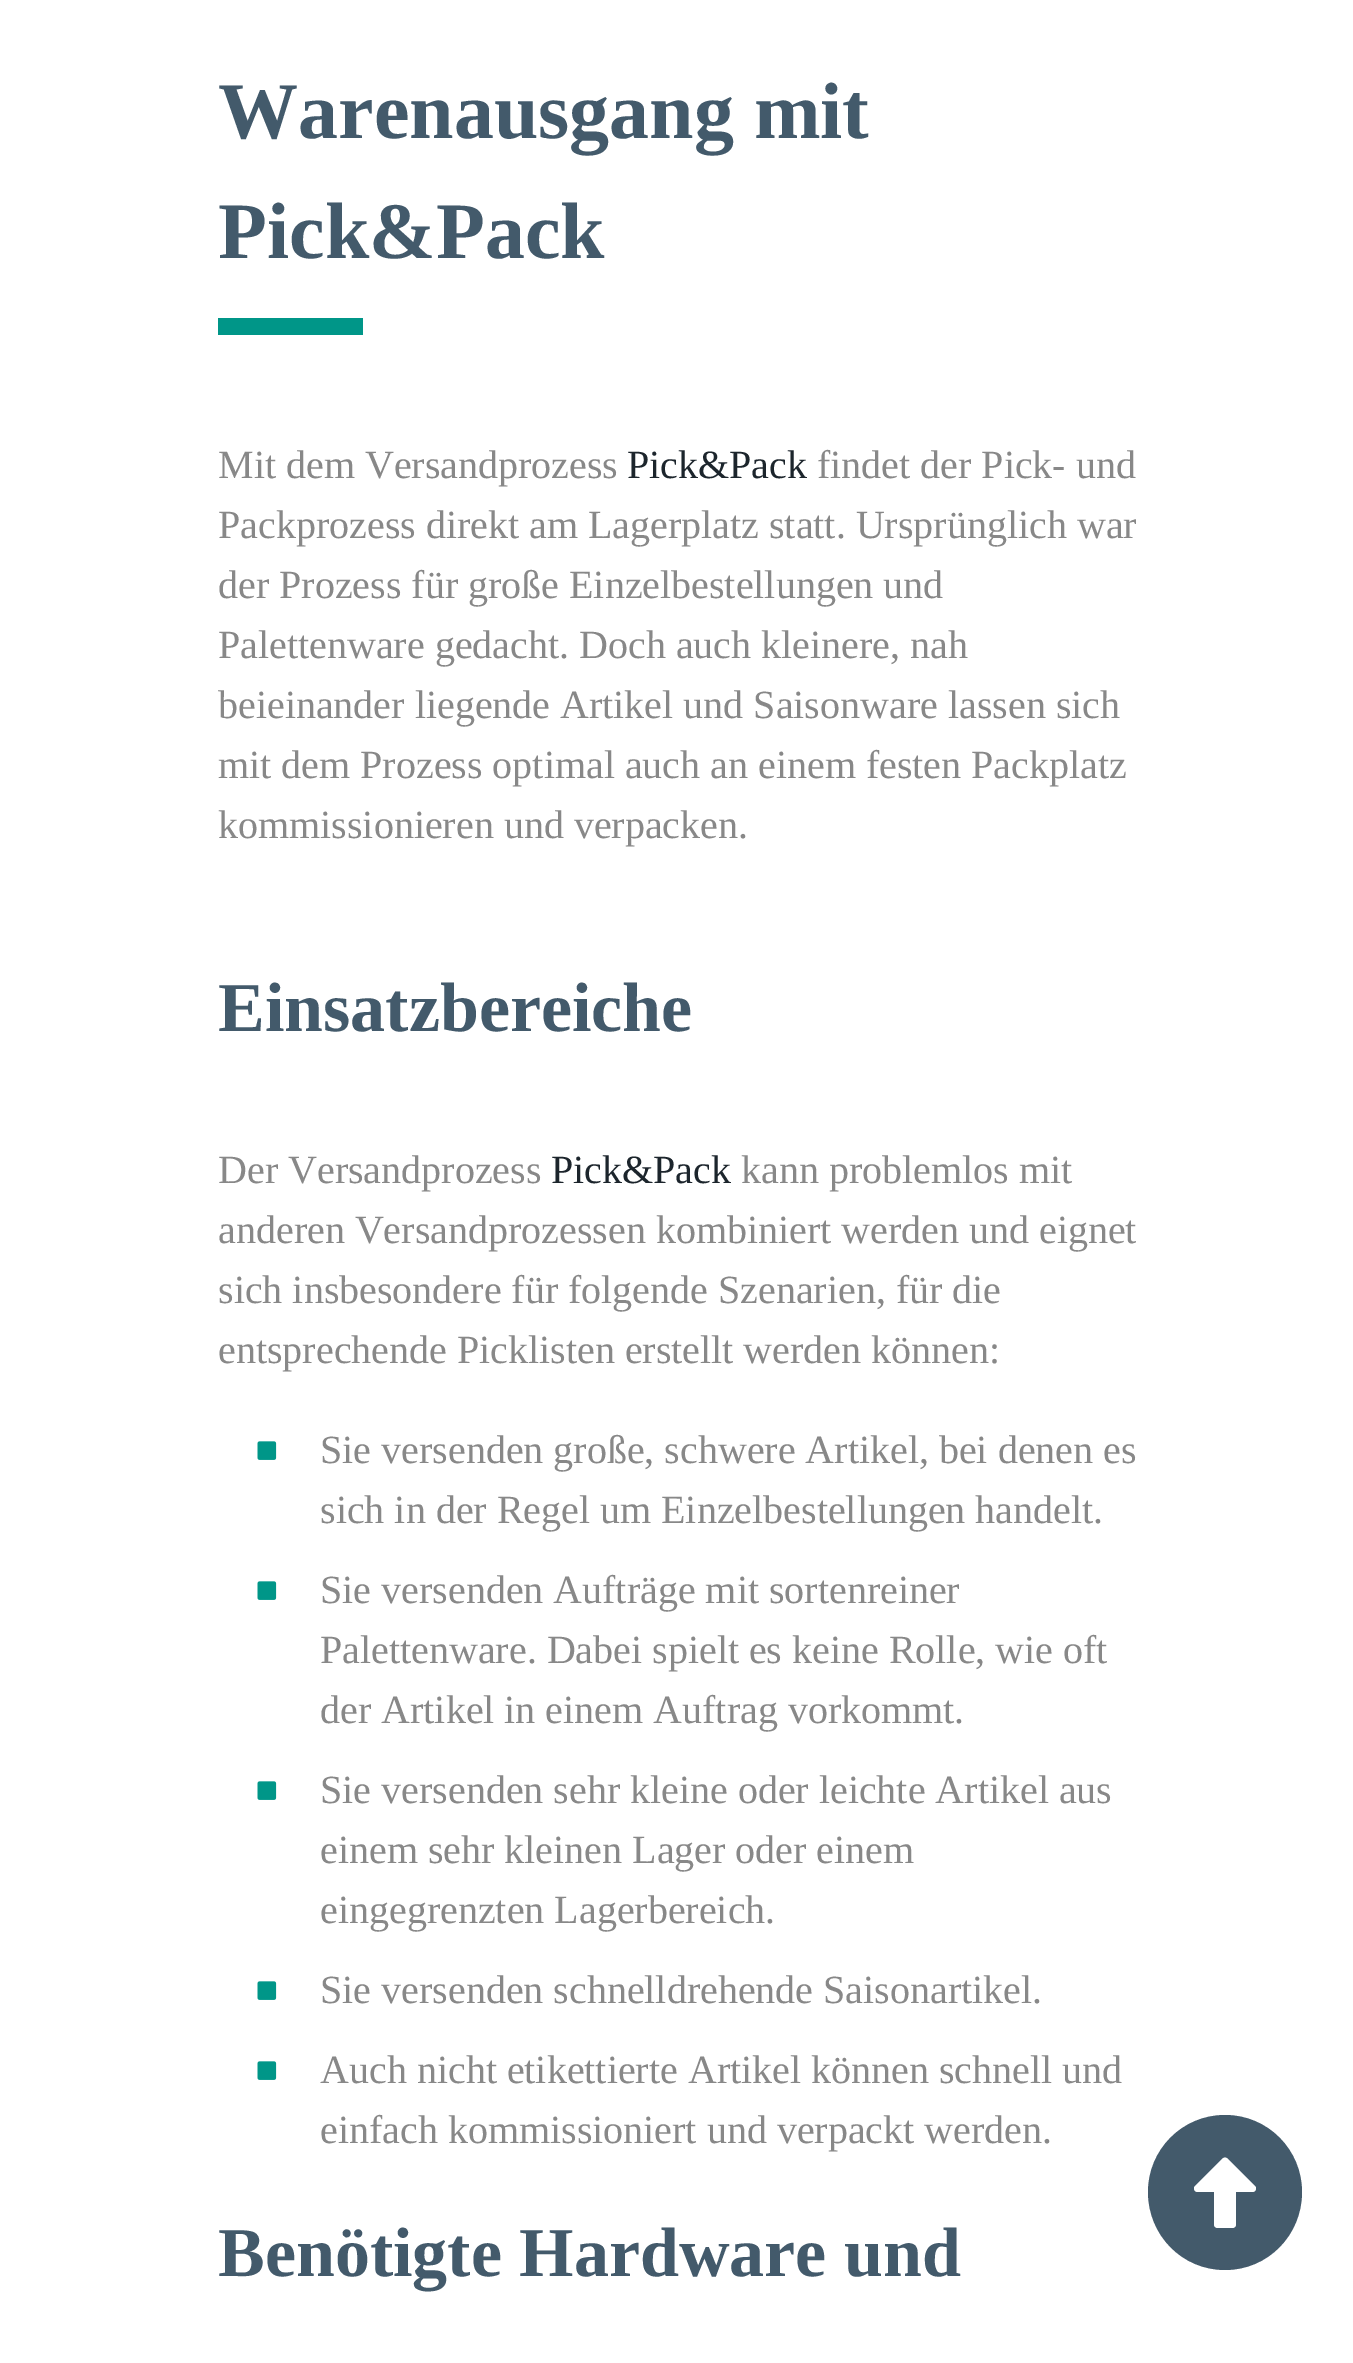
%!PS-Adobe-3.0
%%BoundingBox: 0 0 1353 2363
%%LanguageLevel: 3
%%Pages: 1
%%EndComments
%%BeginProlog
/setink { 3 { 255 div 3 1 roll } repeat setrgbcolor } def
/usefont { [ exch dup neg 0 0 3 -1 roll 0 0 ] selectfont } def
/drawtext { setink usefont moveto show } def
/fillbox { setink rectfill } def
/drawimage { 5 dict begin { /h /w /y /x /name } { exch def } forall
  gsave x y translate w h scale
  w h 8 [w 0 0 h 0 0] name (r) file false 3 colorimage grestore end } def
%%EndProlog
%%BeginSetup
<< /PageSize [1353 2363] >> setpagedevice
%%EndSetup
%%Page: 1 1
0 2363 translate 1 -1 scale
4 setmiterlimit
0 0 1353 2363 255 255 255 fillbox
(Warenausgang mit) 218 138 /LiberationSerif-Bold 80 67 90 107 drawtext
(Pick&Pack) 218 258 /LiberationSerif-Bold 80 67 90 107 drawtext
218 318 145 17 0 150 136 fillbox
(Mit dem Versandprozess) 218 478 /LiberationSerif-Regular 40 136 136 136 drawtext
(Pick&Pack) 627 478 /LiberationSerif-Regular 40 28 37 44 drawtext
(findet der Pick- und) 817 478 /LiberationSerif-Regular 40 136 136 136 drawtext
(Packprozess direkt am Lagerplatz statt. Ursprünglich war) 218 538 /LiberationSerif-Regular 40 136 136 136 drawtext
(der Prozess für große Einzelbestellungen und) 218 598 /LiberationSerif-Regular 40 136 136 136 drawtext
(Palettenware gedacht. Doch auch kleinere, nah) 218 658 /LiberationSerif-Regular 40 136 136 136 drawtext
(beieinander liegende Artikel und Saisonware lassen sich) 218 718 /LiberationSerif-Regular 40 136 136 136 drawtext
(mit dem Prozess optimal auch an einem festen Packplatz) 218 778 /LiberationSerif-Regular 40 136 136 136 drawtext
(kommissionieren und verpacken.) 218 838 /LiberationSerif-Regular 40 136 136 136 drawtext
(Einsatzbereiche) 218 1031 /LiberationSerif-Bold 70 67 90 107 drawtext
(Der Versandprozess) 218 1183 /LiberationSerif-Regular 40 136 136 136 drawtext
(Pick&Pack) 551 1183 /LiberationSerif-Regular 40 28 37 44 drawtext
(kann problemlos mit) 741 1183 /LiberationSerif-Regular 40 136 136 136 drawtext
(anderen Versandprozessen kombiniert werden und eignet) 218 1243 /LiberationSerif-Regular 40 136 136 136 drawtext
(sich insbesondere für folgende Szenarien, für die) 218 1303 /LiberationSerif-Regular 40 136 136 136 drawtext
(entsprechende Picklisten erstellt werden können:) 218 1363 /LiberationSerif-Regular 40 136 136 136 drawtext
(assets/img1.rgb) 257 1441 20 19 drawimage
(Sie versenden große, schwere Artikel, bei denen es) 320 1463 /LiberationSerif-Regular 40 136 136 136 drawtext
(sich in der Regel um Einzelbestellungen handelt.) 320 1523 /LiberationSerif-Regular 40 136 136 136 drawtext
(assets/img1.rgb) 257 1581 20 19 drawimage
(Sie versenden Aufträge mit sortenreiner) 320 1603 /LiberationSerif-Regular 40 136 136 136 drawtext
(Palettenware. Dabei spielt es keine Rolle, wie oft) 320 1663 /LiberationSerif-Regular 40 136 136 136 drawtext
(der Artikel in einem Auftrag vorkommt.) 320 1723 /LiberationSerif-Regular 40 136 136 136 drawtext
(assets/img1.rgb) 257 1781 20 19 drawimage
(Sie versenden sehr kleine oder leichte Artikel aus) 320 1803 /LiberationSerif-Regular 40 136 136 136 drawtext
(einem sehr kleinen Lager oder einem) 320 1863 /LiberationSerif-Regular 40 136 136 136 drawtext
(eingegrenzten Lagerbereich.) 320 1923 /LiberationSerif-Regular 40 136 136 136 drawtext
(assets/img1.rgb) 257 1981 20 19 drawimage
(Sie versenden schnelldrehende Saisonartikel.) 320 2003 /LiberationSerif-Regular 40 136 136 136 drawtext
(assets/img1.rgb) 257 2061 20 19 drawimage
(Auch nicht etikettierte Artikel können schnell und) 320 2083 /LiberationSerif-Regular 40 136 136 136 drawtext
(einfach kommissioniert und verpackt werden.) 320 2143 /LiberationSerif-Regular 40 136 136 136 drawtext
(Benötigte Hardware und) 218 2276 /LiberationSerif-Bold 70 67 90 107 drawtext
1225 2115 moveto 1182 2115 1148 2150 1148 2192 curveto 1148 2235 1182 2270 1225 2270 curveto 1268 2270 1302 2235 1302 2192 curveto 1302 2150 1268 2115 1225 2115 curveto closepath fill
255 255 255 setink
1232 2228 moveto 1218 2228 lineto 1215 2228 1214 2226 1214 2224 curveto 1214 2192 lineto 1198 2192 lineto 1194 2192 1193 2188 1195 2186 curveto 1222 2159 lineto 1224 2157 1226 2157 1228 2159 curveto 1255 2186 lineto 1257 2188 1256 2192 1252 2192 curveto 1236 2192 lineto 1236 2224 lineto 1236 2226 1235 2228 1232 2228 curveto closepath fill
showpage
%%EOF
